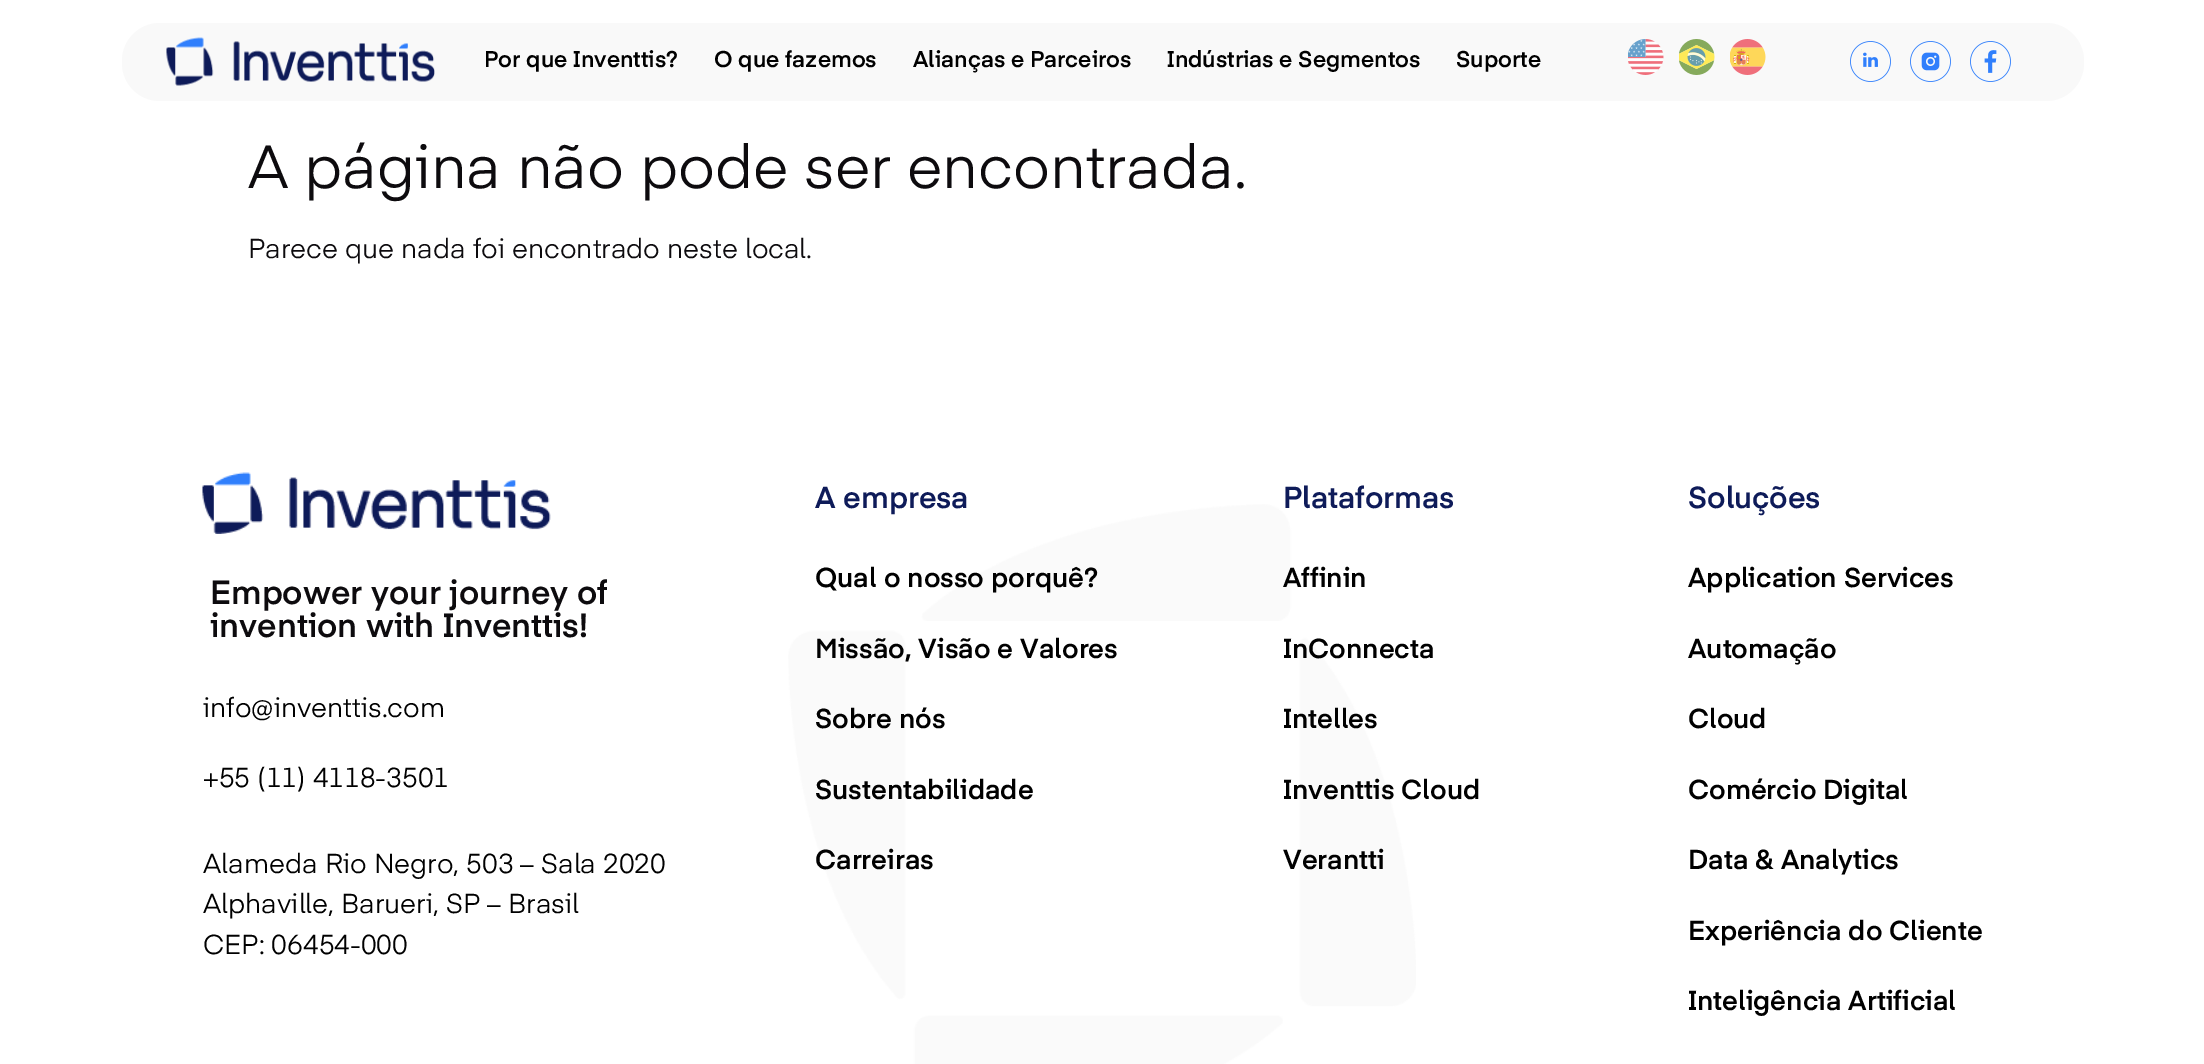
%!PS-Adobe-3.0
%%BoundingBox: 0 0 2204 1064
%%LanguageLevel: 3
%%Pages: 1
%%EndComments
%%BeginProlog
/setink { 3 { 255 div 3 1 roll } repeat setrgbcolor } def
/usefont { [ exch dup neg 0 0 3 -1 roll 0 0 ] selectfont } def
/drawtext { setink usefont moveto show } def
/fillbox { setink rectfill } def
/rrect { 5 dict begin { /r /h /w /y /x } { exch def } forall
  x r add y moveto x w add y 2 copy h add r arct x w add y h add x 1 index r arct
  x y h add x y r arct x y 2 copy exch w add exch r arct closepath end } def
/drawimage { 5 dict begin { /h /w /y /x /name } { exch def } forall
  gsave x y translate w h scale
  w h 8 [w 0 0 h 0 0] name (r) file false 3 colorimage grestore end } def
%%EndProlog
%%BeginSetup
<< /PageSize [2204 1064] >> setpagedevice
%%EndSetup
%%Page: 1 1
0 1064 translate 1 -1 scale
4 setmiterlimit
0 0 2204 1064 255 255 255 fillbox
249 249 249 setink
122 23 1962 78 38 rrect fill
(assets/img1.rgb) 166 37 269 49 drawimage
(Por que Inventtis?) 484 67 /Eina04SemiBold-SemiBold 22.5 0 0 0 drawtext
(O que fazemos) 714 67 /Eina04SemiBold-SemiBold 22.5 0 0 0 drawtext
(Alianças e Parceiros) 913 67 /Eina04SemiBold-SemiBold 22.5 0 0 0 drawtext
(Indústrias e Segmentos) 1167 67 /Eina04SemiBold-SemiBold 22.5 0 0 0 drawtext
(Suporte) 1456 67 /Eina04SemiBold-SemiBold 22.5 0 0 0 drawtext
(assets/img2.rgb) 1628 39 36 36 drawimage
(assets/img3.rgb) 1679 39 36 36 drawimage
(assets/img4.rgb) 1730 39 36 36 drawimage
(assets/img5.rgb) 1850 41 41 41 drawimage
(assets/img6.rgb) 1910 41 41 41 drawimage
(assets/img7.rgb) 1970 41 41 41 drawimage
(A página não pode ser encontrada.) 248 188 /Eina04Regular-Regular 60 13 11 14 drawtext
(Parece que nada foi encontrado neste local.) 248 258 /Eina04Regular-Regular 27 13 11 14 drawtext
(assets/img8.rgb) 788 504 628 560 drawimage
(assets/img9.rgb) 202 472 349 62 drawimage
(Empower your journey of) 210 604 /Eina04SemiBold-SemiBold 33 13 11 14 drawtext
(invention with Inventtis!) 210 637 /Eina04SemiBold-SemiBold 33 13 11 14 drawtext
(info@inventtis.com) 203 717 /Eina04Regular-Regular 27 0 0 0 drawtext
(+55 \(11\) 4118-3501) 203 787 /Eina04Regular-Regular 27 0 0 0 drawtext
(Alameda Rio Negro, 503 – Sala 2020) 203 873 /Eina04Regular-Regular 27 0 0 0 drawtext
(Alphaville, Barueri, SP – Brasil) 203 913 /Eina04Regular-Regular 27 0 0 0 drawtext
(CEP: 06454-000) 203 954 /Eina04Regular-Regular 27 0 0 0 drawtext
(A empresa) 815 508 /Eina04SemiBold-SemiBold 30 14 27 89 drawtext
(Qual o nosso porquê?) 815 587 /Eina04SemiBold-SemiBold 27 0 0 0 drawtext
(Missão, Visão e Valores) 815 658 /Eina04SemiBold-SemiBold 27 0 0 0 drawtext
(Sobre nós) 815 728 /Eina04SemiBold-SemiBold 27 0 0 0 drawtext
(Sustentabilidade) 815 799 /Eina04SemiBold-SemiBold 27 0 0 0 drawtext
(Carreiras) 815 869 /Eina04SemiBold-SemiBold 27 0 0 0 drawtext
(Plataformas) 1283 508 /Eina04SemiBold-SemiBold 30 14 27 89 drawtext
(Affinin) 1283 587 /Eina04SemiBold-SemiBold 27 0 0 0 drawtext
(InConnecta) 1283 658 /Eina04SemiBold-SemiBold 27 0 0 0 drawtext
(Intelles) 1283 728 /Eina04SemiBold-SemiBold 27 0 0 0 drawtext
(Inventtis Cloud) 1283 799 /Eina04SemiBold-SemiBold 27 0 0 0 drawtext
(Verantti) 1283 869 /Eina04SemiBold-SemiBold 27 0 0 0 drawtext
(Soluções) 1688 508 /Eina04SemiBold-SemiBold 30 14 27 89 drawtext
(Application Services) 1688 587 /Eina04SemiBold-SemiBold 27 0 0 0 drawtext
(Automação) 1688 658 /Eina04SemiBold-SemiBold 27 0 0 0 drawtext
(Cloud) 1688 728 /Eina04SemiBold-SemiBold 27 0 0 0 drawtext
(Comércio Digital) 1688 799 /Eina04SemiBold-SemiBold 27 0 0 0 drawtext
(Data & Analytics) 1688 869 /Eina04SemiBold-SemiBold 27 0 0 0 drawtext
(Experiência do Cliente) 1688 940 /Eina04SemiBold-SemiBold 27 0 0 0 drawtext
(Inteligência Artificial) 1688 1010 /Eina04SemiBold-SemiBold 27 0 0 0 drawtext
showpage
%%EOF
